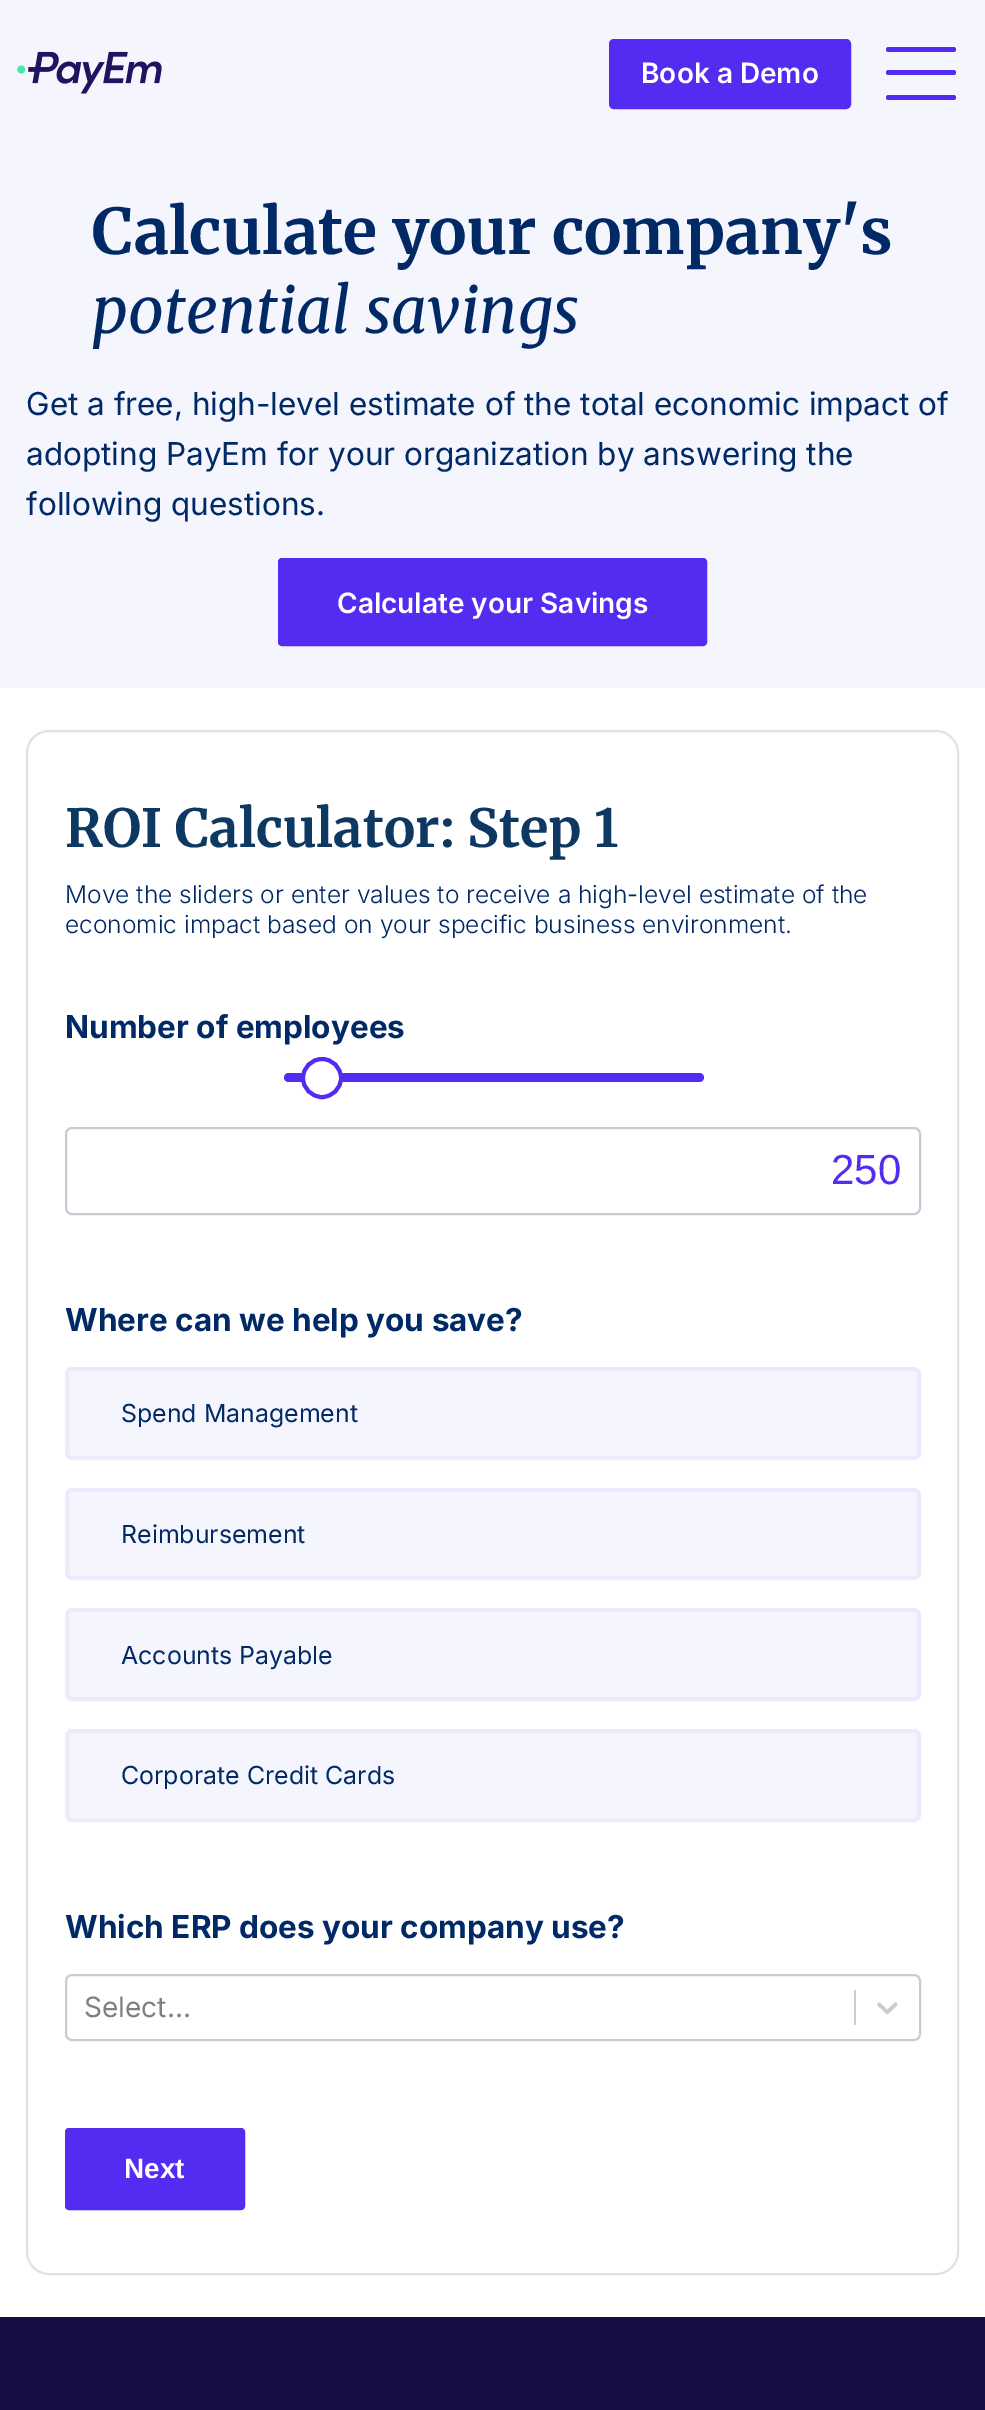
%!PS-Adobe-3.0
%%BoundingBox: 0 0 985 2410
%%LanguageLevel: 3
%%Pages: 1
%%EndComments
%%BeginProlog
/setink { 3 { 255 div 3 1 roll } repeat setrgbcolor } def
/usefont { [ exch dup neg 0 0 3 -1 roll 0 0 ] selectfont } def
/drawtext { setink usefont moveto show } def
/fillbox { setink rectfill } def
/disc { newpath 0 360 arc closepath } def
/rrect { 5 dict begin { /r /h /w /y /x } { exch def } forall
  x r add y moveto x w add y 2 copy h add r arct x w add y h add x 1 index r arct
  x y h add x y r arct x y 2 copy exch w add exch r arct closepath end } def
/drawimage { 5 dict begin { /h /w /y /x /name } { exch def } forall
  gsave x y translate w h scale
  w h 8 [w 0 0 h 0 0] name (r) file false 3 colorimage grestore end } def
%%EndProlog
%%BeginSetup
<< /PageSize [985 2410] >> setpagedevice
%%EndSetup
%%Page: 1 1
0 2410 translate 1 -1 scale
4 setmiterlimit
0 0 985 2410 245 245 254 fillbox
(assets/img1.rgb) 17 51 145 43 drawimage
84 44 241 setink
611 41 238 66 3 rrect gsave fill grestore
4 setlinewidth
stroke
(Book a Demo) 641 83 /Inter-SemiBold 28 255 255 255 drawtext
84 44 241 setink
886 47 70 5 2.5 rrect fill
886 70 70 5 2.5 rrect fill
886 95 70 5 2.5 rrect fill
(Calculate your company's) 92 254 /Merriweather-Bold 63 0 41 102 drawtext
(potential savings) 92 333 /Merriweather-Italic 63 0 41 102 drawtext
(Get a free, high-level estimate of the total economic impact of) 26 415 /Inter-Regular 31.5 0 41 102 drawtext
(adopting PayEm for your organization by answering the) 26 465 /Inter-Regular 31.5 0 41 102 drawtext
(following questions.) 26 515 /Inter-Regular 31.5 0 41 102 drawtext
84 44 241 setink
280 560 425 84 2 rrect gsave fill grestore
stroke
(Calculate your Savings) 337 613 /Inter-SemiBold 28 255 255 255 drawtext
0 688 985 1629 255 255 255 fillbox
223 227 232 setink
2 setlinewidth
27 731 931 1543 22 rrect stroke
(ROI Calculator: Step 1) 65 847 /Merriweather-Bold 52.5 13 56 98 drawtext
(Move the sliders or enter values to receive a high-level estimate of the) 65 903 /Inter-Light 24.5 0 41 102 drawtext
(economic impact based on your specific business environment.) 65 933 /Inter-Light 24.5 0 41 102 drawtext
(Number of employees) 65 1038 /Inter-Bold 31.5 0 41 102 drawtext
84 44 241 setink
284 1073 420 9 4.5 rrect fill
255 255 255 setink
322 1078 19 disc gsave fill grestore
84 44 241 setink
4 setlinewidth
stroke
196 205 213 setink
2 setlinewidth
66 1128 854 86 6 rrect stroke
(250) 831 1184 /LiberationSans-Regular 42 84 44 241 drawtext
(Where can we help you save?) 65 1331 /Inter-Bold 31.5 0 41 102 drawtext
245 245 254 setink
67 1369 852 89 5 rrect gsave fill grestore
238 234 254 setink
4 setlinewidth
stroke
(Spend Management) 121 1422 /Inter-Regular 24.9 0 41 102 drawtext
245 245 254 setink
67 1490 852 88 5 rrect gsave fill grestore
238 234 254 setink
stroke
(Reimbursement) 121 1543 /Inter-Regular 24.9 0 41 102 drawtext
245 245 254 setink
67 1610 852 89 5 rrect gsave fill grestore
238 234 254 setink
stroke
(Accounts Payable) 121 1664 /Inter-Regular 24.9 0 41 102 drawtext
245 245 254 setink
67 1731 852 89 5 rrect gsave fill grestore
238 234 254 setink
stroke
(Corporate Credit Cards) 121 1784 /Inter-Regular 24.9 0 41 102 drawtext
(Which ERP does your company use?) 65 1938 /Inter-Bold 31.5 0 41 102 drawtext
204 204 204 setink
2 setlinewidth
66 1975 854 65 6 rrect stroke
(Select...) 84 2017 /Inter-Regular 28 128 128 128 drawtext
854 1990 2 35 204 204 204 fillbox
(assets/img2.rgb) 877 2002 21 13 drawimage
84 44 241 setink
67 2130 176 78 2 rrect gsave fill grestore
4 setlinewidth
stroke
(Next) 124 2178 /LiberationSans-Bold 28 255 255 255 drawtext
0 2317 985 93 24 13 67 fillbox
showpage
%%EOF
